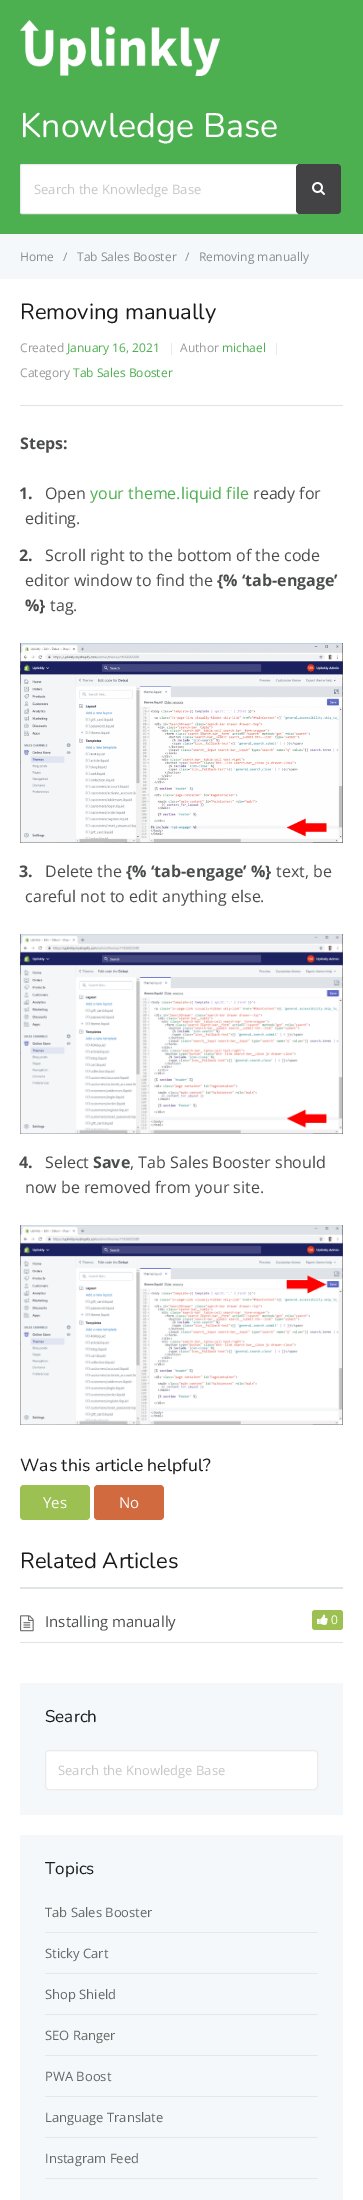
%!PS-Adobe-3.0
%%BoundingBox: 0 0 363 2200
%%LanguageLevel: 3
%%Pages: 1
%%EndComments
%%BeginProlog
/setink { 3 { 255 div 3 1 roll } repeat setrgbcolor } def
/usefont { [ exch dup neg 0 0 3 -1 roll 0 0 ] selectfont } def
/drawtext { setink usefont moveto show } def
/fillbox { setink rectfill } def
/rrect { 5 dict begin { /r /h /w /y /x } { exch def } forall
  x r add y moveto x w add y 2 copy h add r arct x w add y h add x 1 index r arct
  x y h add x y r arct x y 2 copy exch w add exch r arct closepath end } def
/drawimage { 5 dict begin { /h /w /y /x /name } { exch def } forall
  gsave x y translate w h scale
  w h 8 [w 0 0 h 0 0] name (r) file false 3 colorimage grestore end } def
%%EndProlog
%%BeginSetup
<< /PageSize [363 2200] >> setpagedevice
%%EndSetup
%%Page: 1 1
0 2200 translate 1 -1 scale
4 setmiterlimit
0 0 363 2200 255 255 255 fillbox
0 0 363 234 76 175 80 fillbox
(assets/img1.rgb) 20 20 200 56 drawimage
(Knowledge Base) 20 137 /Nunito-ExtraLight 34 255 255 255 drawtext
22 164.5 moveto 297.5 164.5 lineto 297.5 213.5 lineto 22 213.5 lineto 21 213.5 20.5 213 20.5 212 curveto 20.5 166 lineto 20.5 165 21 164.5 22 164.5 curveto closepath gsave fill grestore
235 235 235 setink
stroke
(Search the Knowledge Base) 34 194 /OpenSans-Regular 13 199 199 199 drawtext
67 67 69 setink
296 164 45 50 4 rrect fill
(assets/img2.rgb) 312 182 13 13 drawimage
0 234 363 45 245 248 250 fillbox
(Home) 20 261 /OpenSans-Regular 12 140 140 140 drawtext
(/) 63 261 /OpenSans-Regular 12 140 140 140 drawtext
(Tab Sales Booster) 77 261 /OpenSans-Regular 12 140 140 140 drawtext
(/) 185 261 /OpenSans-Regular 12 140 140 140 drawtext
(Removing manually) 199 261 /OpenSans-Regular 12 140 140 140 drawtext
20 405 323 1 223 228 230 fillbox
(Removing manually) 20 319 /Nunito-ExtraLight 22 26 26 26 drawtext
(Created) 20 352 /OpenSans-Regular 12 153 153 153 drawtext
(January 16, 2021) 67 352 /OpenSans-Regular 12 76 175 80 drawtext
(|) 168 352 /OpenSans-Regular 12 225 227 230 drawtext
(Author) 180 352 /OpenSans-Regular 12 153 153 153 drawtext
(michael) 222 352 /OpenSans-Regular 12 76 175 80 drawtext
(|) 273 352 /OpenSans-Regular 12 225 227 230 drawtext
(Category) 20 377 /OpenSans-Regular 12 153 153 153 drawtext
(Tab Sales Booster) 73 377 /OpenSans-Regular 12 76 175 80 drawtext
(Steps:) 20 449 /OpenSans-Bold 16 75 77 77 drawtext
(1.) 19 499 /OpenSans-Bold 16 75 77 77 drawtext
(Open) 45 499 /OpenSans-Regular 16 75 77 77 drawtext
(your theme.liquid file) 90 499 /OpenSans-Regular 16 76 175 80 drawtext
(ready for) 253 499 /OpenSans-Regular 16 75 77 77 drawtext
(editing.) 25 524 /OpenSans-Regular 16 75 77 77 drawtext
(2.) 19 561 /OpenSans-Bold 16 75 77 77 drawtext
(Scroll right to the bottom of the code) 45 561 /OpenSans-Regular 16 75 77 77 drawtext
(editor window to find the) 25 586 /OpenSans-Regular 16 75 77 77 drawtext
({% ‘tab-engage’) 217 586 /OpenSans-Bold 16 75 77 77 drawtext
(%}) 25 611 /OpenSans-Bold 16 75 77 77 drawtext
(tag.) 50 611 /OpenSans-Regular 16 75 77 77 drawtext
(assets/img3.rgb) 20 643 323 200 drawimage
(3.) 19 877 /OpenSans-Bold 16 75 77 77 drawtext
(Delete the) 45 877 /OpenSans-Regular 16 75 77 77 drawtext
({% ‘tab-engage’ %}) 126 877 /OpenSans-Bold 16 75 77 77 drawtext
(text, be) 276 877 /OpenSans-Regular 16 75 77 77 drawtext
(careful not to edit anything else.) 25 902 /OpenSans-Regular 16 75 77 77 drawtext
(assets/img4.rgb) 20 934 323 200 drawimage
(4.) 19 1168 /OpenSans-Bold 16 75 77 77 drawtext
(Select) 45 1168 /OpenSans-Regular 16 75 77 77 drawtext
(Save) 93 1168 /OpenSans-Bold 16 75 77 77 drawtext
(, Tab Sales Booster should) 130 1168 /OpenSans-Regular 16 75 77 77 drawtext
(now be removed from your site.) 25 1193 /OpenSans-Regular 16 75 77 77 drawtext
(assets/img5.rgb) 20 1225 323 200 drawimage
(Was this article helpful?) 20 1471 /Nunito-ExtraLight 17.5 26 26 26 drawtext
156 192 81 setink
20 1485 70 35 4 rrect fill
(Yes) 43 1508 /OpenSans-Regular 15 255 255 255 drawtext
210 106 64 setink
94 1485 70 35 4 rrect fill
(No) 119 1508 /OpenSans-Regular 15 255 255 255 drawtext
20 1587 323 2 223 228 230 fillbox
(Related Articles) 20 1568 /Nunito-ExtraLight 22 26 26 26 drawtext
20 1642 323 1 225 227 230 fillbox
(assets/img6.rgb) 20 1615 14 17 drawimage
(Installing manually) 45 1627 /OpenSans-Regular 15 75 77 77 drawtext
156 192 81 setink
312 1610 31 20 3 rrect fill
(assets/img7.rgb) 317 1614 11 11 drawimage
(0) 331 1624 /OpenSans-Regular 12 255 255 255 drawtext
20 1683 323 132 245 248 250 fillbox
(Search) 45 1722 /Nunito-ExtraLight 17 26 26 26 drawtext
255 255 255 setink
45.5 1750.5 272 39 3.5 rrect gsave fill grestore
235 235 235 setink
stroke
(Search the Knowledge Base) 58 1775 /OpenSans-Regular 13 199 199 199 drawtext
20 1835 323 365 245 248 250 fillbox
(Topics) 45 1874 /Nunito-ExtraLight 17 26 26 26 drawtext
45 1932 273 1 229 231 233 fillbox
(Tab Sales Booster) 45 1917 /OpenSans-Regular 13 102 102 102 drawtext
45 1973 273 1 229 231 233 fillbox
(Sticky Cart) 45 1958 /OpenSans-Regular 13 102 102 102 drawtext
45 2014 273 1 229 231 233 fillbox
(Shop Shield) 45 1999 /OpenSans-Regular 13 102 102 102 drawtext
45 2055 273 1 229 231 233 fillbox
(SEO Ranger) 45 2040 /OpenSans-Regular 13 102 102 102 drawtext
45 2096 273 1 229 231 233 fillbox
(PWA Boost) 45 2081 /OpenSans-Regular 13 102 102 102 drawtext
45 2137 273 1 229 231 233 fillbox
(Language Translate) 45 2122 /OpenSans-Regular 13 102 102 102 drawtext
45 2178 273 1 229 231 233 fillbox
(Instagram Feed) 45 2163 /OpenSans-Regular 13 102 102 102 drawtext
showpage
%%EOF
